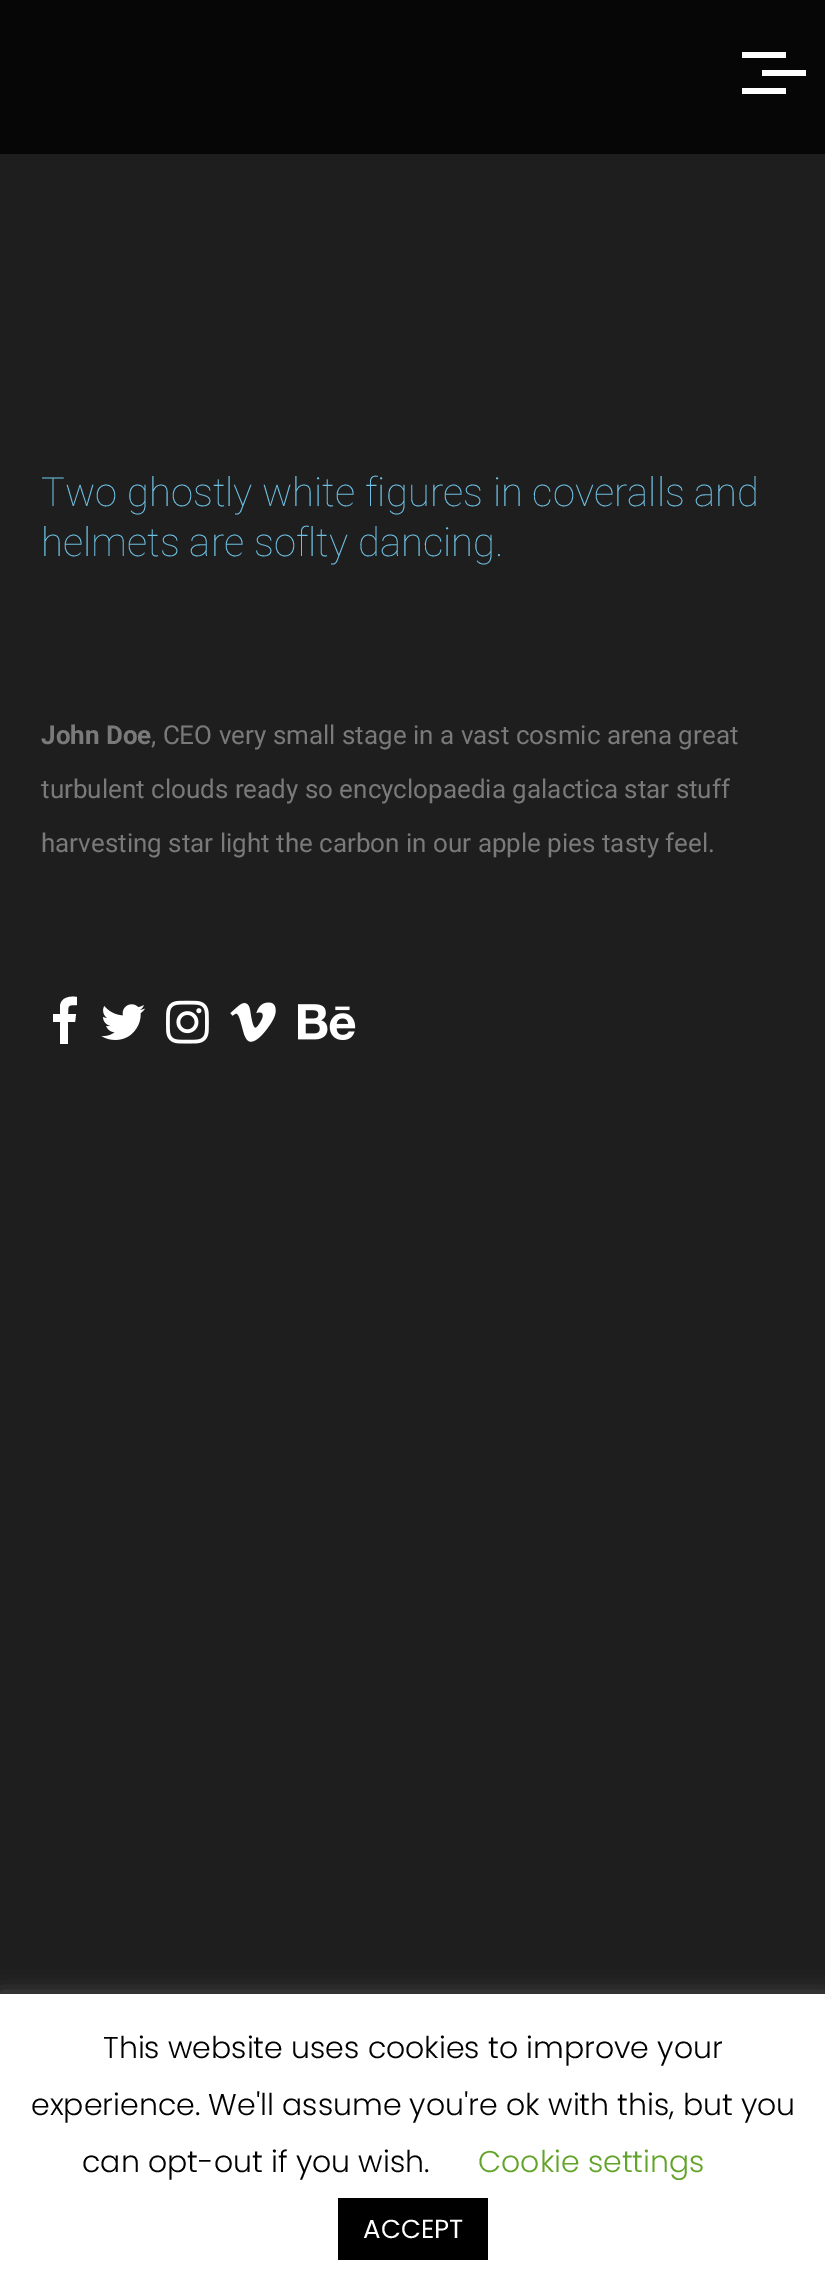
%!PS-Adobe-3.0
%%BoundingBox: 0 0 825 2293
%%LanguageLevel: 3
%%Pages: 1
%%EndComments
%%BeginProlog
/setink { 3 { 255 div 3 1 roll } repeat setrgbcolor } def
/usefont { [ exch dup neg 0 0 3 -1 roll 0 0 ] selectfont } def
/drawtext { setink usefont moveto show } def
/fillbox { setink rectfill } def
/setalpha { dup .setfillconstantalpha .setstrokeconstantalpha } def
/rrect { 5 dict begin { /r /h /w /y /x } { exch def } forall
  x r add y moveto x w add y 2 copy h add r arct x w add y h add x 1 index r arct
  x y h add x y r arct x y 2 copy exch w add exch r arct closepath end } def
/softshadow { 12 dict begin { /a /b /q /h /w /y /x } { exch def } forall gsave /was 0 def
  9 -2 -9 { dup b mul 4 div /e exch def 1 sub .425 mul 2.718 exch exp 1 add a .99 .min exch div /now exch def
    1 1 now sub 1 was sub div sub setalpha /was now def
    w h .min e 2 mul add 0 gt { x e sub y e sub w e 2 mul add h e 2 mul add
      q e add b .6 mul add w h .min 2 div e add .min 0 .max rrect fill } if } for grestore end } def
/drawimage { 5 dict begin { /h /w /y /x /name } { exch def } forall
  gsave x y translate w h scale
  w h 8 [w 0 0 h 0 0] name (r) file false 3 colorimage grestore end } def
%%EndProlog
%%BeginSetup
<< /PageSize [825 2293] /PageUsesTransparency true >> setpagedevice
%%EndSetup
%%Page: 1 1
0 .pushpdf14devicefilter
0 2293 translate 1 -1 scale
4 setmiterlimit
0 0 825 2293 30 30 30 fillbox
0 0 825 154 6 6 6 fillbox
742 52 44 6 255 255 255 fillbox
762 70 44 6 255 255 255 fillbox
742 88 44 6 255 255 255 fillbox
(Two ghostly white figures in coveralls and) 41 506 /Roboto-Thin 40 110 193 228 drawtext
(helmets are soflty dancing.) 41 556 /Roboto-Thin 40 110 193 228 drawtext
(John Doe) 41 744 /Roboto-Bold 26 122 122 122 drawtext
(, CEO very small stage in a vast cosmic arena great) 151 744 /Roboto-Regular 26 122 122 122 drawtext
(turbulent clouds ready so encyclopaedia galactica star stuff) 41 798 /Roboto-Regular 26 122 122 122 drawtext
(harvesting star light the carbon in our apple pies tasty feel.) 41 852 /Roboto-Regular 26 122 122 122 drawtext
255 255 255 setink
77 997 moveto 77 1005 lineto 68 1005 68 1005 68 1014 curveto 76 1014 lineto 75 1022 lineto 68 1022 lineto 68 1044 lineto 60 1044 lineto 60 1022 lineto 53 1022 lineto 53 1014 lineto 60 1014 lineto 60 1006 lineto 61 997 70 996 77 997 curveto closepath fill
(assets/img1.rgb) 101 1004 44 36 drawimage
(assets/img2.rgb) 166 1000 43 44 drawimage
(assets/img3.rgb) 230 1002 46 40 drawimage
(assets/img4.rgb) 298 1004 58 37 drawimage
172 171 171 setink
0 1992 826 300 0 10 0.3 softshadow
0 1994 825 299 255 255 255 fillbox
(This website uses cookies to improve your) 103 2058 /Poppins-Light 30 0 0 0 drawtext
(experience. We'll assume you're ok with this, but you) 31 2115 /Poppins-Light 30 0 0 0 drawtext
(can opt-out if you wish.) 82 2172 /Poppins-Light 30 0 0 0 drawtext
(Cookie settings) 478 2172 /Poppins-Light 30 98 163 41 drawtext
338 2198 150 62 0 0 0 fillbox
(ACCEPT) 363 2238 /Poppins-Regular 26 255 255 255 drawtext
.poppdf14devicefilter showpage
%%EOF
